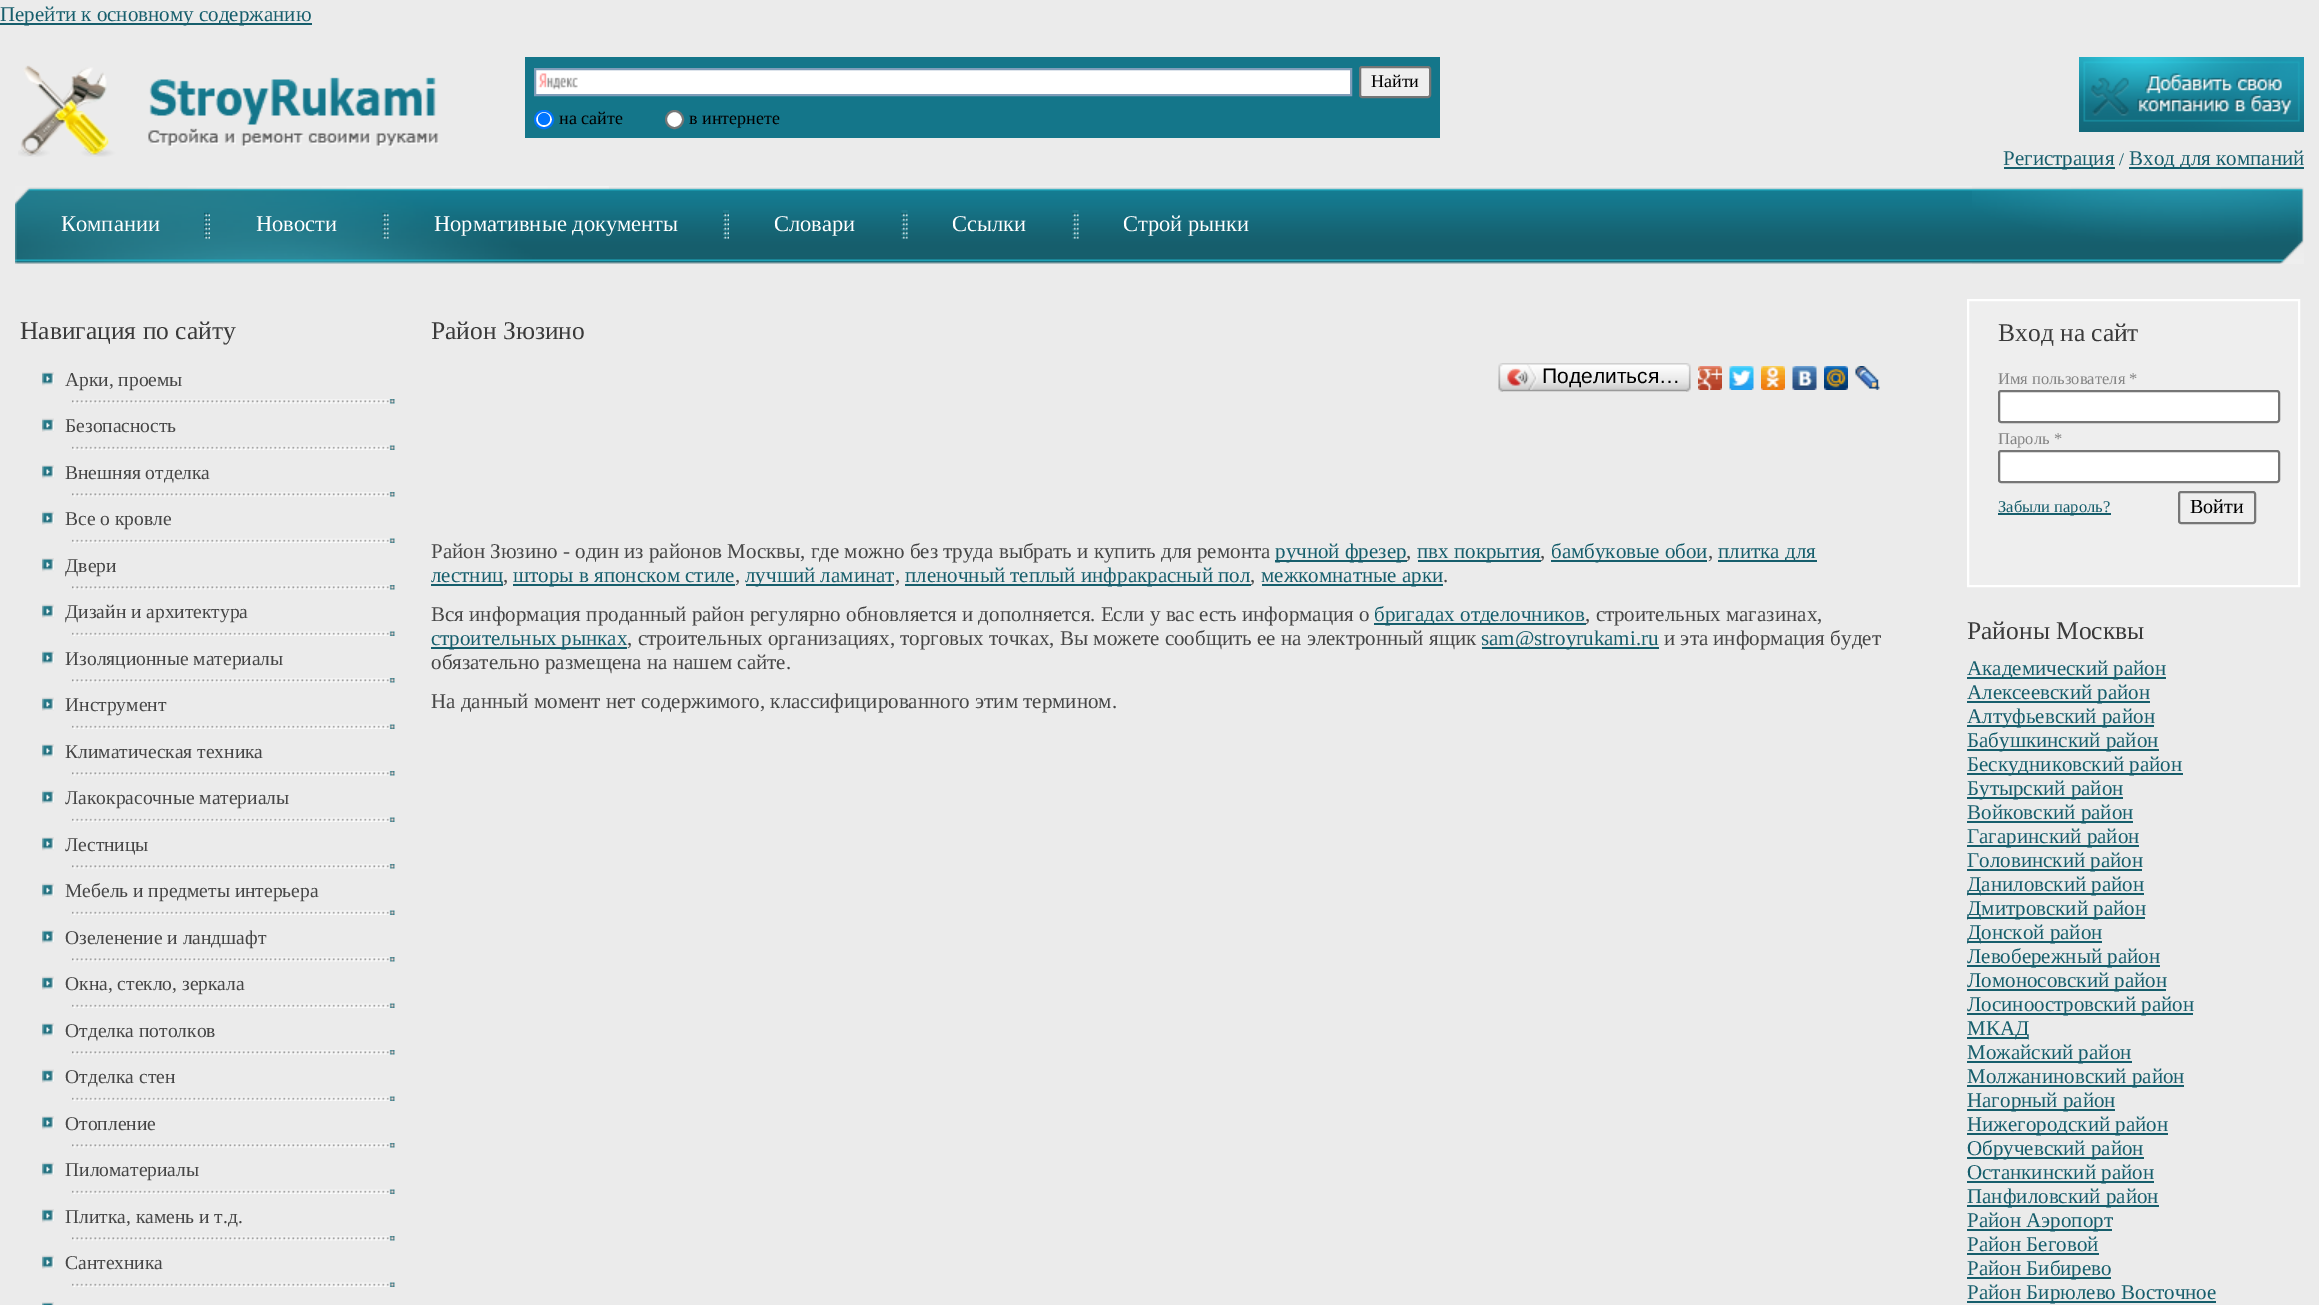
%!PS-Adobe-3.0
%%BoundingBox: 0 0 2319 1305
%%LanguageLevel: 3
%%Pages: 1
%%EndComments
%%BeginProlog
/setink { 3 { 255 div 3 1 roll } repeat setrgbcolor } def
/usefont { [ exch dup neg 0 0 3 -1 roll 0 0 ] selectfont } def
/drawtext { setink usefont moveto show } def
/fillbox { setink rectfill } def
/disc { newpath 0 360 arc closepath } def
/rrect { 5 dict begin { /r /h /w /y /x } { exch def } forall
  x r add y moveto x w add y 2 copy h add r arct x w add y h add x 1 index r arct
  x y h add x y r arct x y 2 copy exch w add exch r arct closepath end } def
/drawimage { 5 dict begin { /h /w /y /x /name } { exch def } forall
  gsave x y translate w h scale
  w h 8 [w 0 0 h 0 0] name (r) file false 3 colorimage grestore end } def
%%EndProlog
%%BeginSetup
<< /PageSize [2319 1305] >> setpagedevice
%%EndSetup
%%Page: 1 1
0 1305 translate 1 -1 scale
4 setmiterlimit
0 0 2319 1305 235 235 235 fillbox
0 23 312 2 22 94 108 fillbox
(Перейти к основному содержанию) 0 21 /LiberationSerif-Regular 21 22 94 108 drawtext
(assets/img1.rgb) 18 65 421 92 drawimage
525 57 915 81 20 118 138 fillbox
536 70 814 24 255 255 255 fillbox
(assets/img2.rgb) 538 73 40 17 drawimage
127 157 185 setink
2 setlinewidth
535 69 816 26 rectstroke
239 239 239 setink
1360 67 70 30 2 rrect gsave fill grestore
118 118 118 setink
stroke
(Найти) 1371 87 /LiberationSerif-Regular 18 0 0 0 drawtext
255 255 255 setink
535 111 18 17 8.5 rrect gsave fill grestore
0 117 255 setink
stroke
544 119 6 disc fill
(на сайте) 559 124 /LiberationSerif-Regular 18 0 0 0 drawtext
255 255 255 setink
674.5 119.5 8.5 disc gsave fill grestore
118 118 118 setink
stroke
(в интернете) 689 124 /LiberationSerif-Regular 18 0 0 0 drawtext
(assets/img3.rgb) 2079 57 225 75 drawimage
2004 167 111 2 22 94 108 fillbox
(Регистрация) 2003 165 /LiberationSerif-Regular 21 22 94 108 drawtext
(/) 2119 165 /LiberationSerif-Regular 18 22 94 108 drawtext
2129 167 175 2 22 94 108 fillbox
(Вход для компаний) 2129 165 /LiberationSerif-Regular 21 22 94 108 drawtext
(assets/img4.rgb) 609 186 1363 78 drawimage
(assets/img5.rgb) 15 186 594 78 drawimage
(assets/img6.rgb) 1972 186 332 78 drawimage
(Компании) 61 231 /LiberationSerif-Regular 22.5 255 255 255 drawtext
(assets/img7.rgb) 204 210 6 29 drawimage
(Новости) 256 231 /LiberationSerif-Regular 22.5 255 255 255 drawtext
(assets/img8.rgb) 382 210 7 29 drawimage
(Нормативные документы) 434 231 /LiberationSerif-Regular 22.5 255 255 255 drawtext
(assets/img9.rgb) 723 210 6 29 drawimage
(Словари) 774 231 /LiberationSerif-Regular 22.5 255 255 255 drawtext
(assets/img10.rgb) 901 210 7 29 drawimage
(Ссылки) 952 231 /LiberationSerif-Regular 22.5 255 255 255 drawtext
(assets/img10.rgb) 1072 210 7 29 drawimage
(Строй рынки) 1123 231 /LiberationSerif-Regular 22.5 255 255 255 drawtext
(Навигация по сайту) 20 339 /LiberationSerif-Regular 25.5 58 58 58 drawtext
(assets/img11.rgb) 42 372 12 14 drawimage
(Арки, проемы) 65 386 /LiberationSerif-Regular 19.5 70 70 70 drawtext
(assets/img12.rgb) 72 399 323 5 drawimage
(assets/img13.rgb) 42 418 12 14 drawimage
(Безопасность) 65 432 /LiberationSerif-Regular 19.5 70 70 70 drawtext
(assets/img14.rgb) 72 445 323 5 drawimage
(assets/img11.rgb) 42 465 12 14 drawimage
(Внешняя отделка) 65 479 /LiberationSerif-Regular 19.5 70 70 70 drawtext
(assets/img12.rgb) 72 492 323 5 drawimage
(assets/img13.rgb) 42 511 12 14 drawimage
(Все о кровле) 65 525 /LiberationSerif-Regular 19.5 70 70 70 drawtext
(assets/img14.rgb) 72 538 323 5 drawimage
(assets/img11.rgb) 42 558 12 14 drawimage
(Двери) 65 572 /LiberationSerif-Regular 19.5 70 70 70 drawtext
(assets/img12.rgb) 72 585 323 5 drawimage
(assets/img13.rgb) 42 604 12 14 drawimage
(Дизайн и архитектура) 65 618 /LiberationSerif-Regular 19.5 70 70 70 drawtext
(assets/img14.rgb) 72 631 323 5 drawimage
(assets/img11.rgb) 42 651 12 14 drawimage
(Изоляционные материалы) 65 665 /LiberationSerif-Regular 19.5 70 70 70 drawtext
(assets/img12.rgb) 72 678 323 5 drawimage
(assets/img13.rgb) 42 697 12 14 drawimage
(Инструмент) 65 711 /LiberationSerif-Regular 19.5 70 70 70 drawtext
(assets/img14.rgb) 72 724 323 5 drawimage
(assets/img11.rgb) 42 744 12 14 drawimage
(Климатическая техника) 65 758 /LiberationSerif-Regular 19.5 70 70 70 drawtext
(assets/img12.rgb) 72 771 323 5 drawimage
(assets/img13.rgb) 42 790 12 14 drawimage
(Лакокрасочные материалы) 65 804 /LiberationSerif-Regular 19.5 70 70 70 drawtext
(assets/img14.rgb) 72 817 323 5 drawimage
(assets/img11.rgb) 42 837 12 14 drawimage
(Лестницы) 65 851 /LiberationSerif-Regular 19.5 70 70 70 drawtext
(assets/img12.rgb) 72 864 323 5 drawimage
(assets/img13.rgb) 42 883 12 14 drawimage
(Мебель и предметы интерьера) 65 897 /LiberationSerif-Regular 19.5 70 70 70 drawtext
(assets/img14.rgb) 72 910 323 5 drawimage
(assets/img11.rgb) 42 930 12 14 drawimage
(Озеленение и ландшафт) 65 944 /LiberationSerif-Regular 19.5 70 70 70 drawtext
(assets/img12.rgb) 72 957 323 5 drawimage
(assets/img13.rgb) 42 976 12 14 drawimage
(Окна, стекло, зеркала) 65 990 /LiberationSerif-Regular 19.5 70 70 70 drawtext
(assets/img14.rgb) 72 1003 323 5 drawimage
(assets/img11.rgb) 42 1023 12 14 drawimage
(Отделка потолков) 65 1037 /LiberationSerif-Regular 19.5 70 70 70 drawtext
(assets/img12.rgb) 72 1050 323 5 drawimage
(assets/img13.rgb) 42 1069 12 14 drawimage
(Отделка стен) 65 1083 /LiberationSerif-Regular 19.5 70 70 70 drawtext
(assets/img14.rgb) 72 1096 323 5 drawimage
(assets/img11.rgb) 42 1116 12 14 drawimage
(Отопление) 65 1130 /LiberationSerif-Regular 19.5 70 70 70 drawtext
(assets/img12.rgb) 72 1143 323 5 drawimage
(assets/img13.rgb) 42 1162 12 14 drawimage
(Пиломатериалы) 65 1176 /LiberationSerif-Regular 19.5 70 70 70 drawtext
(assets/img14.rgb) 72 1189 323 5 drawimage
(assets/img11.rgb) 42 1209 12 14 drawimage
(Плитка, камень и т.д.) 65 1223 /LiberationSerif-Regular 19.5 70 70 70 drawtext
(assets/img12.rgb) 72 1236 323 5 drawimage
(assets/img13.rgb) 42 1255 12 14 drawimage
(Сантехника) 65 1269 /LiberationSerif-Regular 19.5 70 70 70 drawtext
(assets/img14.rgb) 72 1282 323 5 drawimage
(assets/img15.rgb) 42 1302 12 3 drawimage
(Район Зюзино) 431 339 /LiberationSerif-Regular 25.5 58 58 58 drawtext
(assets/img16.rgb) 1503 363 183 29 drawimage
(assets/img17.rgb) 1498 363 5 29 drawimage
(assets/img18.rgb) 1507 364 31 26 drawimage
(Поделиться…) 1542 383 /LiberationSans-Regular 21 0 0 0 drawtext
(assets/img19.rgb) 1686 363 5 29 drawimage
(assets/img20.rgb) 1698 366 24 24 drawimage
(assets/img21.rgb) 1729 366 25 24 drawimage
(assets/img22.rgb) 1761 366 24 24 drawimage
(assets/img23.rgb) 1792 366 25 24 drawimage
(assets/img24.rgb) 1824 366 24 24 drawimage
(assets/img25.rgb) 1855 366 25 24 drawimage
(Район Зюзино - один из районов Москвы, где можно без труда выбрать и купить для ремонта) 431 558 /LiberationSerif-Regular 21 70 70 70 drawtext
1275 560 132 2 22 94 108 fillbox
(ручной фрезер) 1275 558 /LiberationSerif-Regular 21 22 94 108 drawtext
(,) 1406 558 /LiberationSerif-Regular 21 70 70 70 drawtext
1418 560 123 2 22 94 108 fillbox
(пвх покрытия) 1417 558 /LiberationSerif-Regular 21 22 94 108 drawtext
(,) 1540 558 /LiberationSerif-Regular 21 70 70 70 drawtext
1551 560 156 2 22 94 108 fillbox
(бамбуковые обои) 1551 558 /LiberationSerif-Regular 21 22 94 108 drawtext
(,) 1708 558 /LiberationSerif-Regular 21 70 70 70 drawtext
1718 560 99 2 22 94 108 fillbox
(плитка для) 1718 558 /LiberationSerif-Regular 21 22 94 108 drawtext
431 584 72 2 22 94 108 fillbox
(лестниц) 431 582 /LiberationSerif-Regular 21 22 94 108 drawtext
(,) 503 582 /LiberationSerif-Regular 21 70 70 70 drawtext
513 584 222 2 22 94 108 fillbox
(шторы в японском стиле) 513 582 /LiberationSerif-Regular 21 22 94 108 drawtext
(,) 735 582 /LiberationSerif-Regular 21 70 70 70 drawtext
746 584 148 2 22 94 108 fillbox
(лучший ламинат) 745 582 /LiberationSerif-Regular 21 22 94 108 drawtext
(,) 895 582 /LiberationSerif-Regular 21 70 70 70 drawtext
905 584 346 2 22 94 108 fillbox
(пленочный теплый инфракрасный пол) 905 582 /LiberationSerif-Regular 21 22 94 108 drawtext
(,) 1250 582 /LiberationSerif-Regular 21 70 70 70 drawtext
1262 584 181 2 22 94 108 fillbox
(межкомнатные арки) 1261 582 /LiberationSerif-Regular 21 22 94 108 drawtext
(.) 1443 582 /LiberationSerif-Regular 21 70 70 70 drawtext
(Вся информация проданный район регулярно обновляется и дополняется. Если у вас есть информация о) 431 621 /LiberationSerif-Regular 21 70 70 70 drawtext
1374 623 212 2 22 94 108 fillbox
(бригадах отделочников) 1374 621 /LiberationSerif-Regular 21 22 94 108 drawtext
(, строительных магазинах,) 1585 621 /LiberationSerif-Regular 21 70 70 70 drawtext
431 647 196 2 22 94 108 fillbox
(строительных рынках) 431 645 /LiberationSerif-Regular 21 22 94 108 drawtext
(, строительных организациях, торговых точках, Вы можете сообщить ее на электронный ящик) 627 645 /LiberationSerif-Regular 21 70 70 70 drawtext
1482 647 177 2 22 94 108 fillbox
(sam@stroyrukami.ru) 1481 645 /LiberationSerif-Regular 21 22 94 108 drawtext
(и эта информация будет) 1664 645 /LiberationSerif-Regular 21 70 70 70 drawtext
(обязательно размещена на нашем сайте.) 431 669 /LiberationSerif-Regular 21 70 70 70 drawtext
(На данный момент нет содержимого, классифицированного этим термином.) 431 708 /LiberationSerif-Regular 21 70 70 70 drawtext
238 238 238 setink
1968 300 moveto 2299 300 lineto 2299 586 lineto 1968 586 lineto closepath gsave fill grestore
255 255 255 setink
stroke
(Вход на сайт) 1998 341 /LiberationSerif-Regular 25.5 58 58 58 drawtext
(Имя пользователя *) 1998 384 /LiberationSerif-Regular 16.5 133 133 133 drawtext
255 255 255 setink
1999 391 280 31 2 rrect gsave fill grestore
118 118 118 setink
stroke
(Пароль *) 1998 444 /LiberationSerif-Regular 16.5 133 133 133 drawtext
255 255 255 setink
1999 451 280 31 2 rrect gsave fill grestore
118 118 118 setink
stroke
1998 513 113 2 22 94 108 fillbox
(Забыли пароль?) 1998 512 /LiberationSerif-Regular 16.5 22 94 108 drawtext
118 118 118 setink
2179 492 76 31 2 rrect stroke
(Войти) 2190 513 /LiberationSerif-Regular 20 0 0 0 drawtext
(Районы Москвы) 1967 639 /LiberationSerif-Regular 25.5 58 58 58 drawtext
1967 677 199 2 22 94 108 fillbox
(Академический район) 1967 675 /LiberationSerif-Regular 21 22 94 108 drawtext
1967 701 183 2 22 94 108 fillbox
(Алексеевский район) 1967 699 /LiberationSerif-Regular 21 22 94 108 drawtext
1967 725 187 2 22 94 108 fillbox
(Алтуфьевский район) 1967 723 /LiberationSerif-Regular 21 22 94 108 drawtext
1967 749 192 2 22 94 108 fillbox
(Бабушкинский район) 1967 747 /LiberationSerif-Regular 21 22 94 108 drawtext
1967 773 216 2 22 94 108 fillbox
(Бескудниковский район) 1967 771 /LiberationSerif-Regular 21 22 94 108 drawtext
1967 797 156 2 22 94 108 fillbox
(Бутырский район) 1967 795 /LiberationSerif-Regular 21 22 94 108 drawtext
1967 821 166 2 22 94 108 fillbox
(Войковский район) 1967 819 /LiberationSerif-Regular 21 22 94 108 drawtext
1967 845 172 2 22 94 108 fillbox
(Гагаринский район) 1967 843 /LiberationSerif-Regular 21 22 94 108 drawtext
1967 869 175 2 22 94 108 fillbox
(Головинский район) 1967 867 /LiberationSerif-Regular 21 22 94 108 drawtext
1967 893 177 2 22 94 108 fillbox
(Даниловский район) 1967 891 /LiberationSerif-Regular 21 22 94 108 drawtext
1967 917 178 2 22 94 108 fillbox
(Дмитровский район) 1967 915 /LiberationSerif-Regular 21 22 94 108 drawtext
1967 941 135 2 22 94 108 fillbox
(Донской район) 1967 939 /LiberationSerif-Regular 21 22 94 108 drawtext
1967 965 193 2 22 94 108 fillbox
(Левобережный район) 1967 963 /LiberationSerif-Regular 21 22 94 108 drawtext
1967 989 199 2 22 94 108 fillbox
(Ломоносовский район) 1967 987 /LiberationSerif-Regular 21 22 94 108 drawtext
1967 1013 226 2 22 94 108 fillbox
(Лосиноостровский район) 1967 1011 /LiberationSerif-Regular 21 22 94 108 drawtext
1967 1037 61 2 22 94 108 fillbox
(МКАД) 1967 1035 /LiberationSerif-Regular 21 22 94 108 drawtext
1967 1061 165 2 22 94 108 fillbox
(Можайский район) 1967 1059 /LiberationSerif-Regular 21 22 94 108 drawtext
1967 1085 217 2 22 94 108 fillbox
(Молжаниновский район) 1967 1083 /LiberationSerif-Regular 21 22 94 108 drawtext
1967 1109 148 2 22 94 108 fillbox
(Нагорный район) 1967 1107 /LiberationSerif-Regular 21 22 94 108 drawtext
1967 1133 201 2 22 94 108 fillbox
(Нижегородский район) 1967 1131 /LiberationSerif-Regular 21 22 94 108 drawtext
1967 1157 177 2 22 94 108 fillbox
(Обручевский район) 1967 1155 /LiberationSerif-Regular 21 22 94 108 drawtext
1967 1181 187 2 22 94 108 fillbox
(Останкинский район) 1967 1179 /LiberationSerif-Regular 21 22 94 108 drawtext
1967 1205 192 2 22 94 108 fillbox
(Панфиловский район) 1967 1203 /LiberationSerif-Regular 21 22 94 108 drawtext
1967 1229 145 2 22 94 108 fillbox
(Район Аэропорт) 1967 1227 /LiberationSerif-Regular 21 22 94 108 drawtext
(Район Беговой) 1967 1251 /LiberationSerif-Regular 21 22 94 108 drawtext
1967 1253 132 2 22 94 108 fillbox
1967 1277 144 2 22 94 108 fillbox
(Район Бибирево) 1967 1275 /LiberationSerif-Regular 21 22 94 108 drawtext
1967 1301 249 2 22 94 108 fillbox
(Район Бирюлево Восточное) 1967 1299 /LiberationSerif-Regular 21 22 94 108 drawtext
showpage
%%EOF
